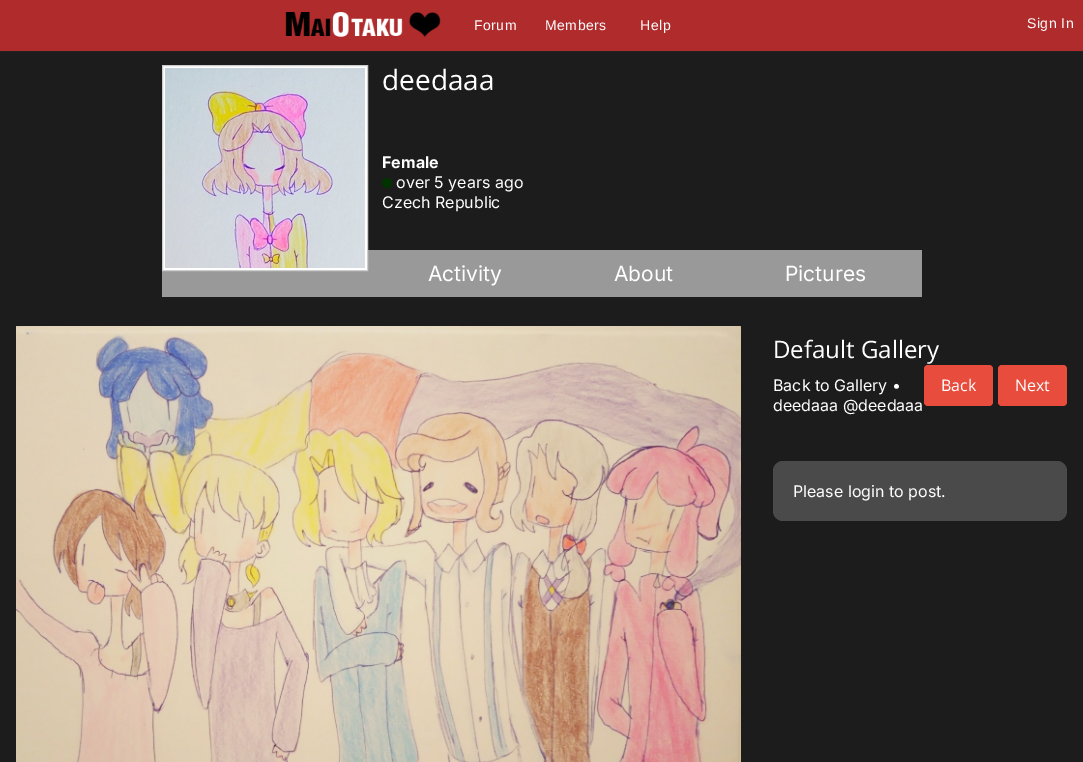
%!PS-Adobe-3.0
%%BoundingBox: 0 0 1083 762
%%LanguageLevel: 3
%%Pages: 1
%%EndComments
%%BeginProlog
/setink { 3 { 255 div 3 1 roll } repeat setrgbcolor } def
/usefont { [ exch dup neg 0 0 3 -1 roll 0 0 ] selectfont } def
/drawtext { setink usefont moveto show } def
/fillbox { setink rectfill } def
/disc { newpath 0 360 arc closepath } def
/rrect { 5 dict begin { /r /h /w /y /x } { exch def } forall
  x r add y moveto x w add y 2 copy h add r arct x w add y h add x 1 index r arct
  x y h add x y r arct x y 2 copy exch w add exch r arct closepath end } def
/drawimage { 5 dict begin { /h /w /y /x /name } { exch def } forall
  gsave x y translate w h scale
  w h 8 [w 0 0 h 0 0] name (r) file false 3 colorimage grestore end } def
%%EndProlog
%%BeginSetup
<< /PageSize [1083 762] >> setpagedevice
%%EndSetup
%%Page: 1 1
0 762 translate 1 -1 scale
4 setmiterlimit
0 0 1083 762 29 28 28 fillbox
0 0 1083 51 176 43 44 fillbox
0 51 1083 1 34 34 34 fillbox
(assets/img1.rgb) 285 12 156 25 drawimage
/LiberationSans-Regular 14 usefont
255 255 255 setink
474 30 moveto 0.5 0 (Forum) ashow
545 30 moveto 0.5 0 (Members) ashow
640 30 moveto 0.5 0 (Help) ashow
1027 28 moveto 0.5 0 (Sign In) ashow
162 250 760 47 153 153 153 fillbox
255 255 255 setink
162.5 65.5 moveto 367.5 65.5 lineto 367.5 270.5 lineto 162.5 270.5 lineto closepath gsave fill grestore
204 204 204 setink
stroke
(assets/img2.rgb) 165 68 200 200 drawimage
(deedaaa) 382 90 /OpenSans-Regular 28 255 255 255 drawtext
(Female) 382 168 /Inter-Bold 16 255 255 255 drawtext
0 51 0 setink
387 183 5 disc fill
(over 5 years ago) 396 188 /Inter-Regular 16 255 255 255 drawtext
(Czech Republic) 382 208 /Inter-Regular 16 255 255 255 drawtext
(Activity) 428 281 /Inter-Regular 21 255 255 255 drawtext
(About) 614 281 /Inter-Regular 21 255 255 255 drawtext
(Pictures) 785 281 /Inter-Regular 21 255 255 255 drawtext
(assets/img3.rgb) 16 326 725 436 drawimage
(Default Gallery) 773 358 /OpenSans-Regular 24 255 255 255 drawtext
(Back to Gallery •) 773 391 /Inter-Regular 16 255 255 255 drawtext
(deedaaa @deedaaa) 773 411 /Inter-Regular 16 255 255 255 drawtext
231 76 60 setink
924 365 69 41 4 rrect fill
(Back) 941 391 /OpenSans-Regular 16 255 255 255 drawtext
231 76 60 setink
998 365 69 41 4 rrect fill
(Next) 1015 391 /OpenSans-Regular 16 255 255 255 drawtext
74 74 74 setink
773 461 294 60 10 rrect fill
(Please login to post.) 793 497 /Inter-Regular 16 255 255 255 drawtext
showpage
%%EOF
